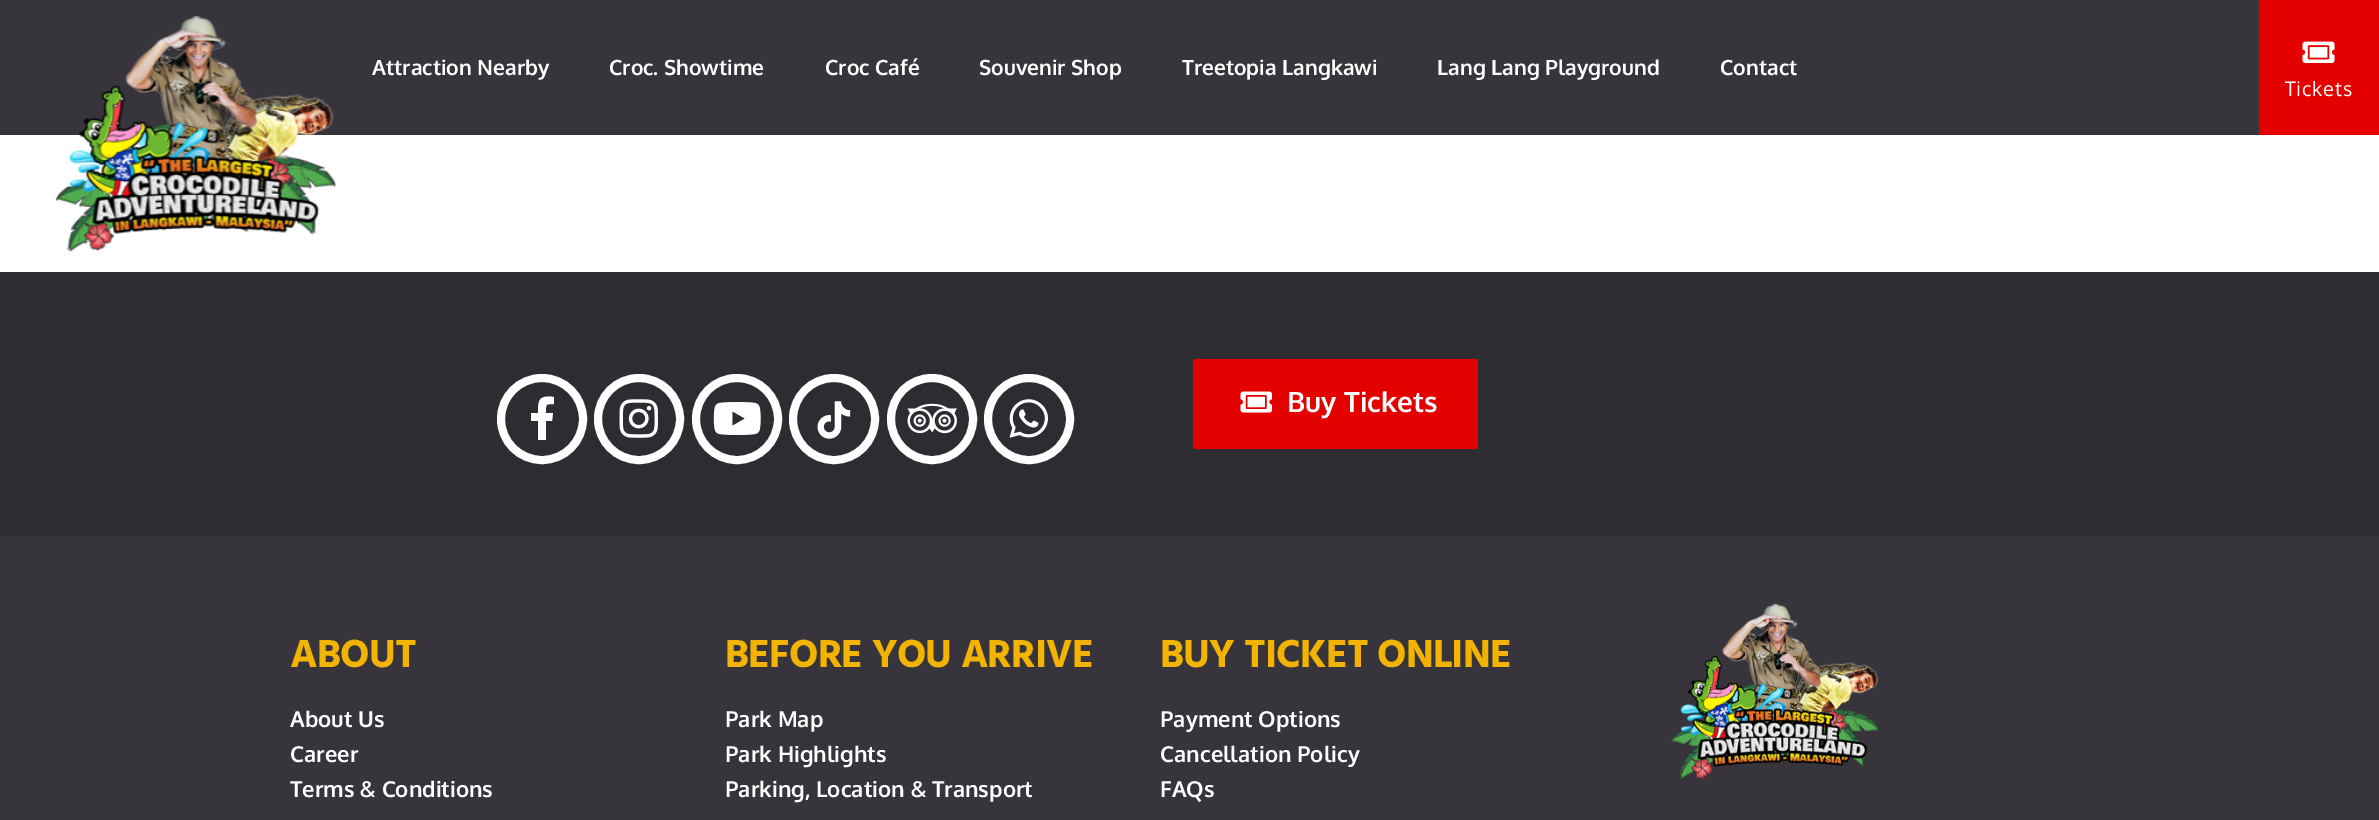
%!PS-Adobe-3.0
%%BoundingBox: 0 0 2379 820
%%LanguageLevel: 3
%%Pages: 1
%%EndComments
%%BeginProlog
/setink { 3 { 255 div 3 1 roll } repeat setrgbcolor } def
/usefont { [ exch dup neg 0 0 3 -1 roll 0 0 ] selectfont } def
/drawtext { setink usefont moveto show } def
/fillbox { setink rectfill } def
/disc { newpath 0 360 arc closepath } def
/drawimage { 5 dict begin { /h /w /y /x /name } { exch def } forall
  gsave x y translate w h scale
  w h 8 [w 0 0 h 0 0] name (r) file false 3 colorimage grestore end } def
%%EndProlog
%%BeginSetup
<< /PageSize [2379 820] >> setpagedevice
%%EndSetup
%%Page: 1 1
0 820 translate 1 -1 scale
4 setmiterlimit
0 0 2379 820 255 255 255 fillbox
0 0 2259 135 56 52 60 fillbox
(assets/img1.rgb) 55 16 281 236 drawimage
(Attraction Nearby) 372 75 /Oxygen-Bold 21 255 255 255 drawtext
(Croc. Showtime) 609 75 /Oxygen-Bold 21 255 255 255 drawtext
(Croc Café) 825 75 /Oxygen-Bold 21 255 255 255 drawtext
(Souvenir Shop) 979 75 /Oxygen-Bold 21 255 255 255 drawtext
(Treetopia Langkawi) 1182 75 /Oxygen-Bold 21 255 255 255 drawtext
(Lang Lang Playground) 1437 75 /Oxygen-Bold 21 255 255 255 drawtext
(Contact) 1720 75 /Oxygen-Bold 21 255 255 255 drawtext
2259 0 120 135 229 0 0 fillbox
(assets/img2.rgb) 2302 41 33 22 drawimage
/Oxygen-Regular 20 usefont
255 255 255 setink
2285 96 moveto 0.75 0 (Tickets) ashow
0 536 2379 284 56 52 60 fillbox
0 272 2379 264 47 43 50 fillbox
255 255 255 setink
8 setlinewidth
542 419 41 disc stroke
538 440 moveto 538 421 lineto 531 421 lineto 531 413 lineto 538 413 lineto 538 400 539 395 554 397 curveto 554 404 lineto 545 404 546 404 546 413 curveto 553 413 lineto 552 421 lineto 546 421 lineto 546 440 lineto closepath fill
639 419 41 disc stroke
(assets/img3.rgb) 619 399 39 39 drawimage
737 419 41 disc stroke
(assets/img4.rgb) 713 402 48 33 drawimage
834 419 41 disc stroke
(assets/img5.rgb) 817 401 34 38 drawimage
932 419 41 disc stroke
(assets/img6.rgb) 907 403 50 31 drawimage
1029 419 41 disc stroke
(assets/img7.rgb) 1009 399 39 39 drawimage
1193 359 285 90 229 0 0 fillbox
(assets/img8.rgb) 1240 391 32 22 drawimage
(Buy Tickets) 1287 412 /Oxygen-Bold 28 255 255 255 drawtext
/HindVadodara-Bold 40 usefont
242 180 0 setink
290 667 moveto -0.75 0 (ABOUT) ashow
(About Us) 290 727 /Oxygen-Bold 22 255 255 255 drawtext
(Career) 290 762 /Oxygen-Bold 22 255 255 255 drawtext
(Terms & Conditions) 290 797 /Oxygen-Bold 22 255 255 255 drawtext
/HindVadodara-Bold 40 usefont
242 180 0 setink
725 667 moveto -0.75 0 (BEFORE YOU ARRIVE) ashow
(Park Map) 725 727 /Oxygen-Bold 22 255 255 255 drawtext
(Park Highlights) 725 762 /Oxygen-Bold 22 255 255 255 drawtext
(Parking, Location & Transport) 725 797 /Oxygen-Bold 22 255 255 255 drawtext
/HindVadodara-Bold 40 usefont
242 180 0 setink
1160 667 moveto -0.75 0 (BUY TICKET ONLINE) ashow
(Payment Options) 1160 727 /Oxygen-Bold 22 255 255 255 drawtext
(Cancellation Policy) 1160 762 /Oxygen-Bold 22 255 255 255 drawtext
(FAQs) 1160 797 /Oxygen-Bold 22 255 255 255 drawtext
(assets/img9.rgb) 1670 603 210 177 drawimage
showpage
%%EOF
